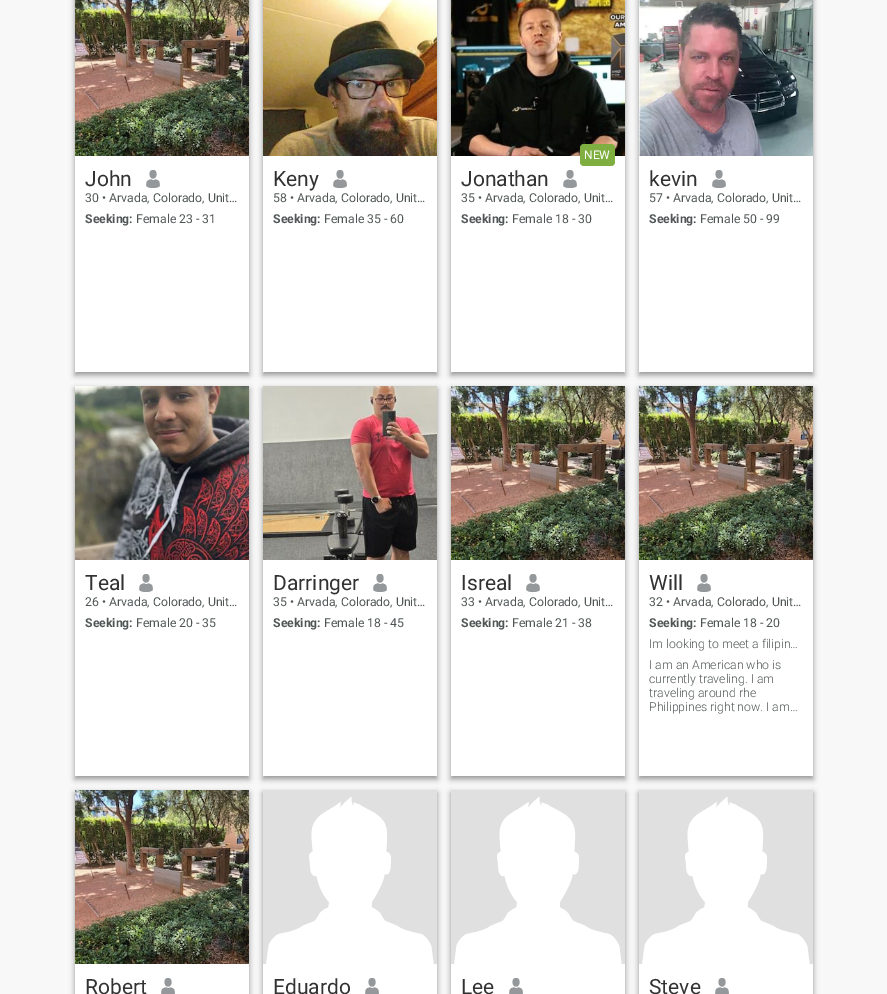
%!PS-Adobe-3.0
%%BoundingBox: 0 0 887 994
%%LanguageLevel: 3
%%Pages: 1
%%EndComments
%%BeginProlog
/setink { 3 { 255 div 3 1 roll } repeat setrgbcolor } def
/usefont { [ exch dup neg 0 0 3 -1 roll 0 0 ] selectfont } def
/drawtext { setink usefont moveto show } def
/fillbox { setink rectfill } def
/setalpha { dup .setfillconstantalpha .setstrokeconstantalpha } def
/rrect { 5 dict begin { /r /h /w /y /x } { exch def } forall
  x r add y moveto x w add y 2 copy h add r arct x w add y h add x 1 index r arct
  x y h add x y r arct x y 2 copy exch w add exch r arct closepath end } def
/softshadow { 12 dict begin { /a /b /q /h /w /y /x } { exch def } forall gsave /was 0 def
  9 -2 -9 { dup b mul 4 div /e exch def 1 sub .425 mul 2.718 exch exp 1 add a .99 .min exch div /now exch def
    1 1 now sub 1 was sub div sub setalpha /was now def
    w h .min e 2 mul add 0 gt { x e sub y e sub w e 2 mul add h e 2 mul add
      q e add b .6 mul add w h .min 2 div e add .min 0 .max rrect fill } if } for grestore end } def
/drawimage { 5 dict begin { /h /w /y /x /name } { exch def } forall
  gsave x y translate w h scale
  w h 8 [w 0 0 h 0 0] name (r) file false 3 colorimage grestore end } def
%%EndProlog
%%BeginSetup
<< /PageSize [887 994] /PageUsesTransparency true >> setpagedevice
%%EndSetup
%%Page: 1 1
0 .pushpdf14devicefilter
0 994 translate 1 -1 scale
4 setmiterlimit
0 0 887 994 248 248 248 fillbox
0 0 0 setink
75 -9 174 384 0 3 0.4 softshadow
75 156 174 216 255 255 255 fillbox
(assets/img1.rgb) 75 0 174 156 drawimage
(John) 85 186 /Roboto-Regular 21 50 50 50 drawtext
(assets/img2.rgb) 146 170 14 18 drawimage
(30 • Arvada, Colorado, Unit…) 85 202 /Roboto-Regular 12.25 80 86 86 drawtext
(Seeking:) 85 223 /Roboto-Bold 12.25 80 86 86 drawtext
(Female 23 - 31) 136 223 /Roboto-Regular 12.25 80 86 86 drawtext
0 0 0 setink
263 -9 174 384 0 3 0.4 softshadow
263 156 174 216 255 255 255 fillbox
(assets/img3.rgb) 263 0 174 156 drawimage
(Keny) 273 186 /Roboto-Regular 21 50 50 50 drawtext
(assets/img2.rgb) 333 170 14 18 drawimage
(58 • Arvada, Colorado, Unit…) 273 202 /Roboto-Regular 12.25 80 86 86 drawtext
(Seeking:) 273 223 /Roboto-Bold 12.25 80 86 86 drawtext
(Female 35 - 60) 324 223 /Roboto-Regular 12.25 80 86 86 drawtext
0 0 0 setink
451 -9 174 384 0 3 0.4 softshadow
451 156 174 216 255 255 255 fillbox
(assets/img4.rgb) 451 0 174 156 drawimage
127 175 65 setink
580 144 35 22 4 rrect fill
(NEW) 584 159 /Roboto-Regular 12 255 255 255 drawtext
(Jonathan) 461 186 /Roboto-Regular 21 50 50 50 drawtext
(assets/img2.rgb) 563 170 14 18 drawimage
(35 • Arvada, Colorado, Unit…) 461 202 /Roboto-Regular 12.25 80 86 86 drawtext
(Seeking:) 461 223 /Roboto-Bold 12.25 80 86 86 drawtext
(Female 18 - 30) 512 223 /Roboto-Regular 12.25 80 86 86 drawtext
0 0 0 setink
639 -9 174 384 0 3 0.4 softshadow
639 156 174 216 255 255 255 fillbox
(assets/img5.rgb) 639 0 174 156 drawimage
(kevin) 649 186 /Roboto-Regular 21 50 50 50 drawtext
(assets/img2.rgb) 712 170 14 18 drawimage
(57 • Arvada, Colorado, Unit…) 649 202 /Roboto-Regular 12.25 80 86 86 drawtext
(Seeking:) 649 223 /Roboto-Bold 12.25 80 86 86 drawtext
(Female 50 - 99) 700 223 /Roboto-Regular 12.25 80 86 86 drawtext
0 0 0 setink
75 389 174 390 0 3 0.4 softshadow
75 560 174 216 255 255 255 fillbox
(assets/img6.rgb) 75 386 174 174 drawimage
(Teal) 85 590 /Roboto-Regular 21 50 50 50 drawtext
(assets/img2.rgb) 139 574 14 18 drawimage
(26 • Arvada, Colorado, Unit…) 85 606 /Roboto-Regular 12.25 80 86 86 drawtext
(Seeking:) 85 627 /Roboto-Bold 12.25 80 86 86 drawtext
(Female 20 - 35) 136 627 /Roboto-Regular 12.25 80 86 86 drawtext
0 0 0 setink
263 389 174 390 0 3 0.4 softshadow
263 560 174 216 255 255 255 fillbox
(assets/img7.rgb) 263 386 174 174 drawimage
(Darringer) 273 590 /Roboto-Regular 21 50 50 50 drawtext
(assets/img2.rgb) 373 574 14 18 drawimage
(35 • Arvada, Colorado, Unit…) 273 606 /Roboto-Regular 12.25 80 86 86 drawtext
(Seeking:) 273 627 /Roboto-Bold 12.25 80 86 86 drawtext
(Female 18 - 45) 324 627 /Roboto-Regular 12.25 80 86 86 drawtext
0 0 0 setink
451 389 174 390 0 3 0.4 softshadow
451 560 174 216 255 255 255 fillbox
(assets/img8.rgb) 451 386 174 174 drawimage
(Isreal) 461 590 /Roboto-Regular 21 50 50 50 drawtext
(assets/img2.rgb) 526 574 14 18 drawimage
(33 • Arvada, Colorado, Unit…) 461 606 /Roboto-Regular 12.25 80 86 86 drawtext
(Seeking:) 461 627 /Roboto-Bold 12.25 80 86 86 drawtext
(Female 21 - 38) 512 627 /Roboto-Regular 12.25 80 86 86 drawtext
0 0 0 setink
639 389 174 390 0 3 0.4 softshadow
639 560 174 216 255 255 255 fillbox
(assets/img9.rgb) 639 386 174 174 drawimage
(Will) 649 590 /Roboto-Regular 21 50 50 50 drawtext
(assets/img2.rgb) 697 574 14 18 drawimage
(32 • Arvada, Colorado, Unit…) 649 606 /Roboto-Regular 12.25 80 86 86 drawtext
(Seeking:) 649 627 /Roboto-Bold 12.25 80 86 86 drawtext
(Female 18 - 20) 700 627 /Roboto-Regular 12.25 80 86 86 drawtext
(Im looking to meet a filipin…) 649 648 /Roboto-Light 12.25 80 86 86 drawtext
(I am an American who is) 649 669 /Roboto-Light 12.25 80 86 86 drawtext
(currently traveling. I am) 649 683 /Roboto-Light 12.25 80 86 86 drawtext
(traveling around rhe) 649 697 /Roboto-Light 12.25 80 86 86 drawtext
(Philippines right now. I am…) 649 711 /Roboto-Light 12.25 80 86 86 drawtext
0 0 0 setink
75 793 174 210 0 3 0.4 softshadow
75 964 174 30 255 255 255 fillbox
(assets/img10.rgb) 75 790 174 174 drawimage
(Robert) 85 994 /Roboto-Regular 21 50 50 50 drawtext
(assets/img11.rgb) 161 978 14 16 drawimage
0 0 0 setink
263 793 174 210 0 3 0.4 softshadow
263 964 174 30 255 255 255 fillbox
263 790 174 174 224 224 224 fillbox
(assets/img12.rgb) 266 796 168 168 drawimage
(Eduardo) 273 994 /Roboto-Regular 21 50 50 50 drawtext
(assets/img11.rgb) 365 978 14 16 drawimage
0 0 0 setink
451 793 174 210 0 3 0.4 softshadow
451 964 174 30 255 255 255 fillbox
451 790 174 174 224 224 224 fillbox
(assets/img13.rgb) 454 796 168 168 drawimage
(Lee) 461 994 /Roboto-Regular 21 50 50 50 drawtext
(assets/img11.rgb) 509 978 14 16 drawimage
0 0 0 setink
639 793 174 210 0 3 0.4 softshadow
639 964 174 30 255 255 255 fillbox
639 790 174 174 224 224 224 fillbox
(assets/img14.rgb) 642 796 168 168 drawimage
(Steve) 649 994 /Roboto-Regular 21 50 50 50 drawtext
(assets/img11.rgb) 715 978 14 16 drawimage
.poppdf14devicefilter showpage
%%EOF
